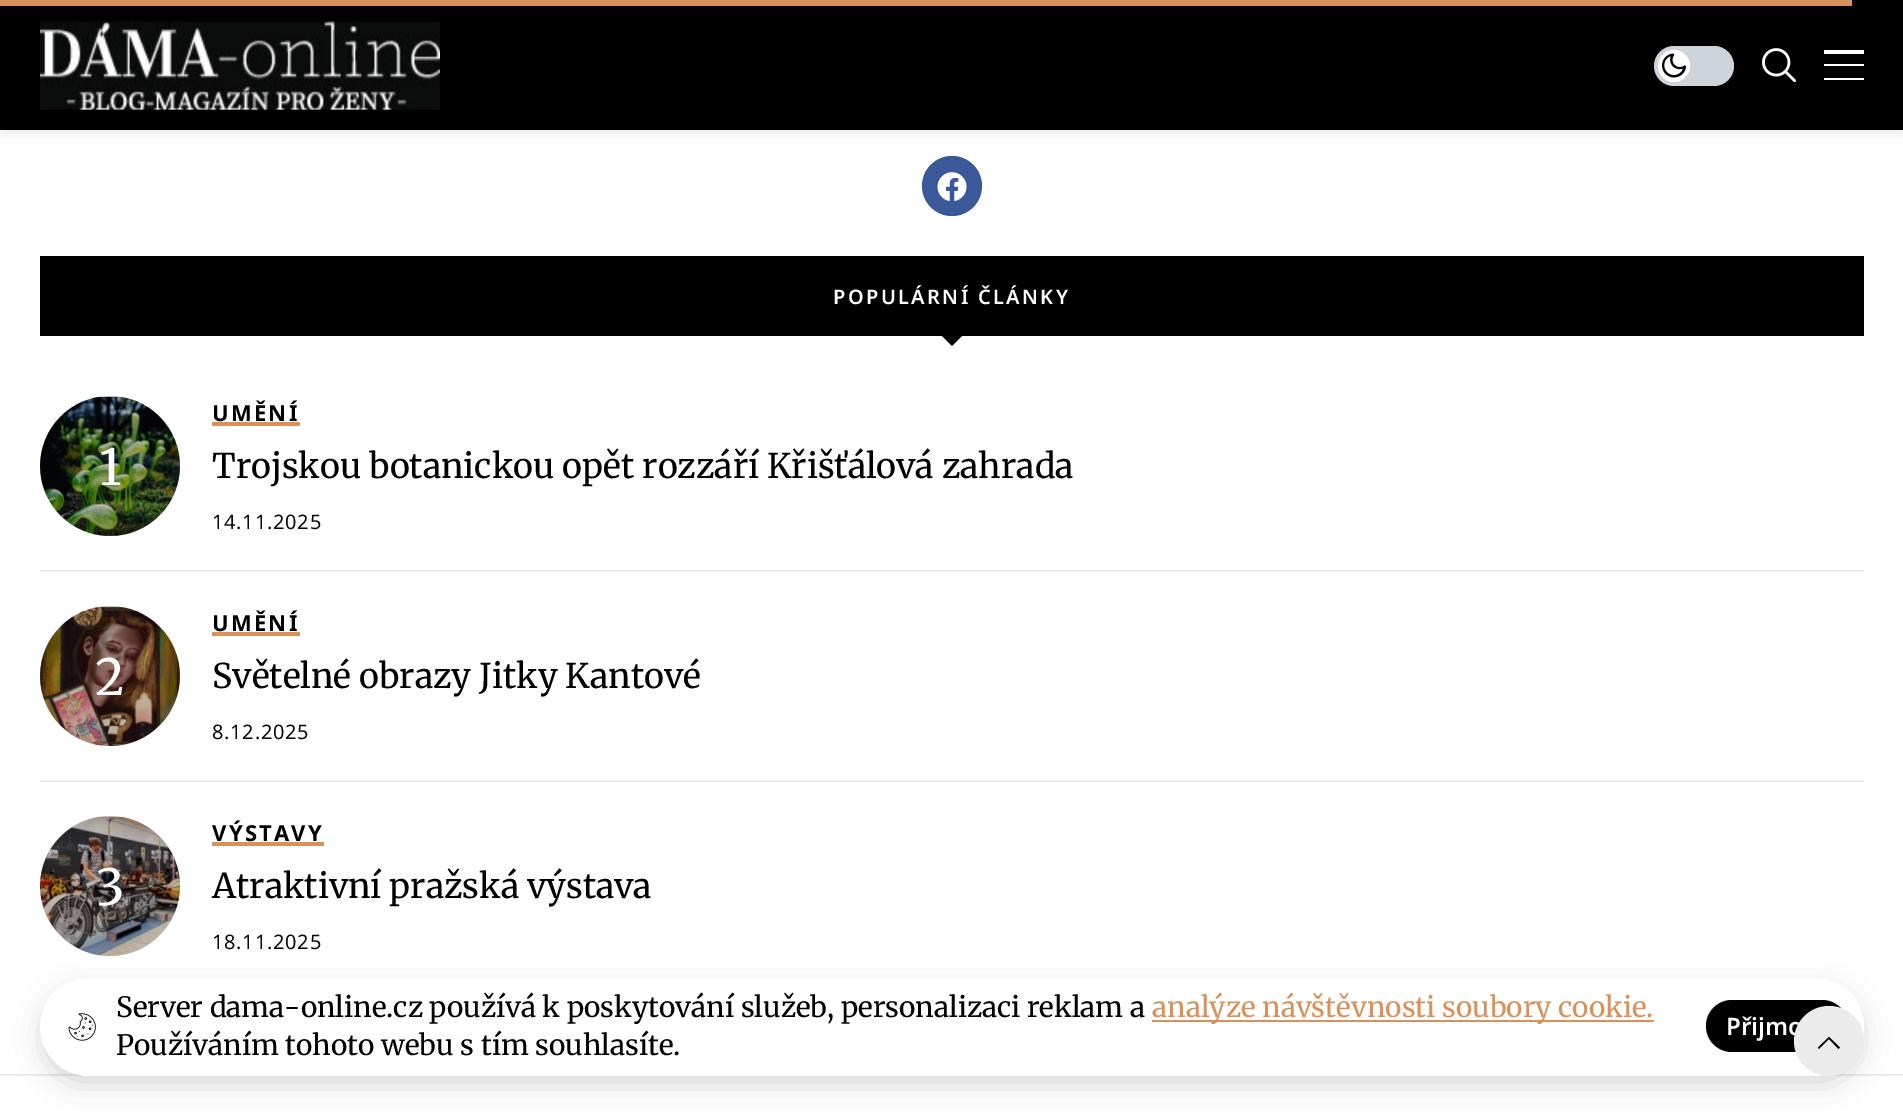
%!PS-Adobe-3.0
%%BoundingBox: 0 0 1903 1115
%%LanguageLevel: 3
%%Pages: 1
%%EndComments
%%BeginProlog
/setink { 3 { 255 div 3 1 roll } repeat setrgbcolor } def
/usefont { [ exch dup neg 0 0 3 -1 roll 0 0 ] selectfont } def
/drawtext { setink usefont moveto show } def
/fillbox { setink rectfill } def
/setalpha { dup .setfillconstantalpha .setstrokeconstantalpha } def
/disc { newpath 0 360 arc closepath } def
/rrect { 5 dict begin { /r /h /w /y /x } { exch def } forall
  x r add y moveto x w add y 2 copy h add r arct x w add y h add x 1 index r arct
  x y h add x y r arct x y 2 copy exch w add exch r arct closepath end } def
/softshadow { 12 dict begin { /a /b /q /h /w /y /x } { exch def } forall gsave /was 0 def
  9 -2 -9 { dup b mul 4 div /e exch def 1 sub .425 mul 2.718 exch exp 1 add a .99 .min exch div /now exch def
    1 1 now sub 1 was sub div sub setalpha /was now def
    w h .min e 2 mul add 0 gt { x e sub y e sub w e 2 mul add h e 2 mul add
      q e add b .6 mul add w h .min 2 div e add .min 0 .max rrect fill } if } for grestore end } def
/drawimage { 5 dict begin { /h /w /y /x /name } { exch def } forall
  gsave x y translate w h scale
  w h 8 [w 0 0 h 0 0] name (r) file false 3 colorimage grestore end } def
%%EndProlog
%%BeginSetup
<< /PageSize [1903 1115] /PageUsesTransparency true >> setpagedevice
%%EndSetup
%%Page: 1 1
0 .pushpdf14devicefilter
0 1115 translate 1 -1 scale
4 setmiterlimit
0 0 1903 1115 255 255 255 fillbox
0 0 0 setink
0 4 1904 130 0 5 0.07 softshadow
0 0 1903 130 0 0 0 fillbox
(assets/img1.rgb) 40 21 400 89 drawimage
206 212 218 setink
1654 46 80 40 20 rrect fill
255 255 255 setink
1674 66 16 disc fill
(assets/img2.rgb) 1662 53 24 25 drawimage
(assets/img3.rgb) 1762 48 34 35 drawimage
1824 50 40 4 255 255 255 fillbox
1824 64 40 2 255 255 255 fillbox
1824 78 40 2 255 255 255 fillbox
0 0 1852 6 218 145 89 fillbox
59 89 152 setink
952 186 30 disc fill
(assets/img4.rgb) 937 172 30 29 drawimage
40 256 1824 80 0 0 0 fillbox
/NotoSans-SemiBold 20 usefont
255 255 255 setink
833 304 moveto 2.4 0 (POPULÁRNÍ ČLÁNKY) ashow
0 0 0 setink
942 336 moveto 962 336 lineto 952 346 lineto closepath fill
(assets/img5.rgb) 40 397 140 139 drawimage
0.25 setalpha
110 466 70 disc fill
1 setalpha
(1) 99 485 /Merriweather-Light 50 255 255 255 drawtext
/NotoSans-Bold 22 usefont
0 0 0 setink
212 421 moveto 2.25 0 (UMĚNÍ) ashow
212 422 88 4 218 145 89 fillbox
(Trojskou botanickou opět rozzáří Křišťálová zahrada) 212 478 /Merriweather-Light 34 0 0 0 drawtext
/NotoSans-Regular 20 usefont
10 10 10 setink
212 529 moveto 0.75 0 (14.11.2025) ashow
40 570 1824 2 233 236 239 fillbox
(assets/img6.rgb) 40 607 140 139 drawimage
0.25 setalpha
0 0 0 setink
110 676 70 disc fill
1 setalpha
(2) 95 695 /Merriweather-Light 50 255 255 255 drawtext
/NotoSans-Bold 22 usefont
0 0 0 setink
212 631 moveto 2.25 0 (UMĚNÍ) ashow
212 632 88 4 218 145 89 fillbox
(Světelné obrazy Jitky Kantové) 212 688 /Merriweather-Light 34 0 0 0 drawtext
/NotoSans-Regular 20 usefont
10 10 10 setink
212 739 moveto 0.75 0 (8.12.2025) ashow
40 780 1824 2 233 236 239 fillbox
(assets/img7.rgb) 40 817 140 139 drawimage
0.25 setalpha
0 0 0 setink
110 886 70 disc fill
1 setalpha
(3) 96 905 /Merriweather-Light 50 255 255 255 drawtext
/NotoSans-Bold 22 usefont
0 0 0 setink
212 841 moveto 2.25 0 (VÝSTAVY) ashow
212 842 112 4 218 145 89 fillbox
(Atraktivní pražská výstava) 212 898 /Merriweather-Light 34 0 0 0 drawtext
/NotoSans-Regular 20 usefont
10 10 10 setink
212 949 moveto 0.75 0 (18.11.2025) ashow
0 1074 1903 2 233 236 239 fillbox
0 0 0 setink
46 994 1812 86 43 15 0.2 softshadow
255 255 255 setink
40 978 1824 98 49 rrect fill
0 0 0 setink
1706 1000 142 52 26 rrect fill
(Přijmo) 1726 1035 /NotoSans-SemiBold 24 255 255 255 drawtext
235 235 235 setink
1829 1041 35 disc fill
0 0 0 setink
1829 1037 moveto 1818 1047.5 lineto 1819 1049 lineto 1829 1039 lineto 1838.5 1049 lineto 1840 1047.5 lineto closepath fill
(assets/img8.rgb) 68 1013 28 28 drawimage
(Server dama-online.cz používá k poskytování služeb, personalizaci reklam a) 116 1017 /Merriweather-Light 28 0 0 0 drawtext
1152 1020 502 2 218 145 89 fillbox
(analýze návštěvnosti soubory cookie.) 1152 1017 /Merriweather-Light 28 218 145 89 drawtext
(Používáním tohoto webu s tím souhlasíte.) 116 1055 /Merriweather-Light 28 0 0 0 drawtext
.poppdf14devicefilter showpage
%%EOF
